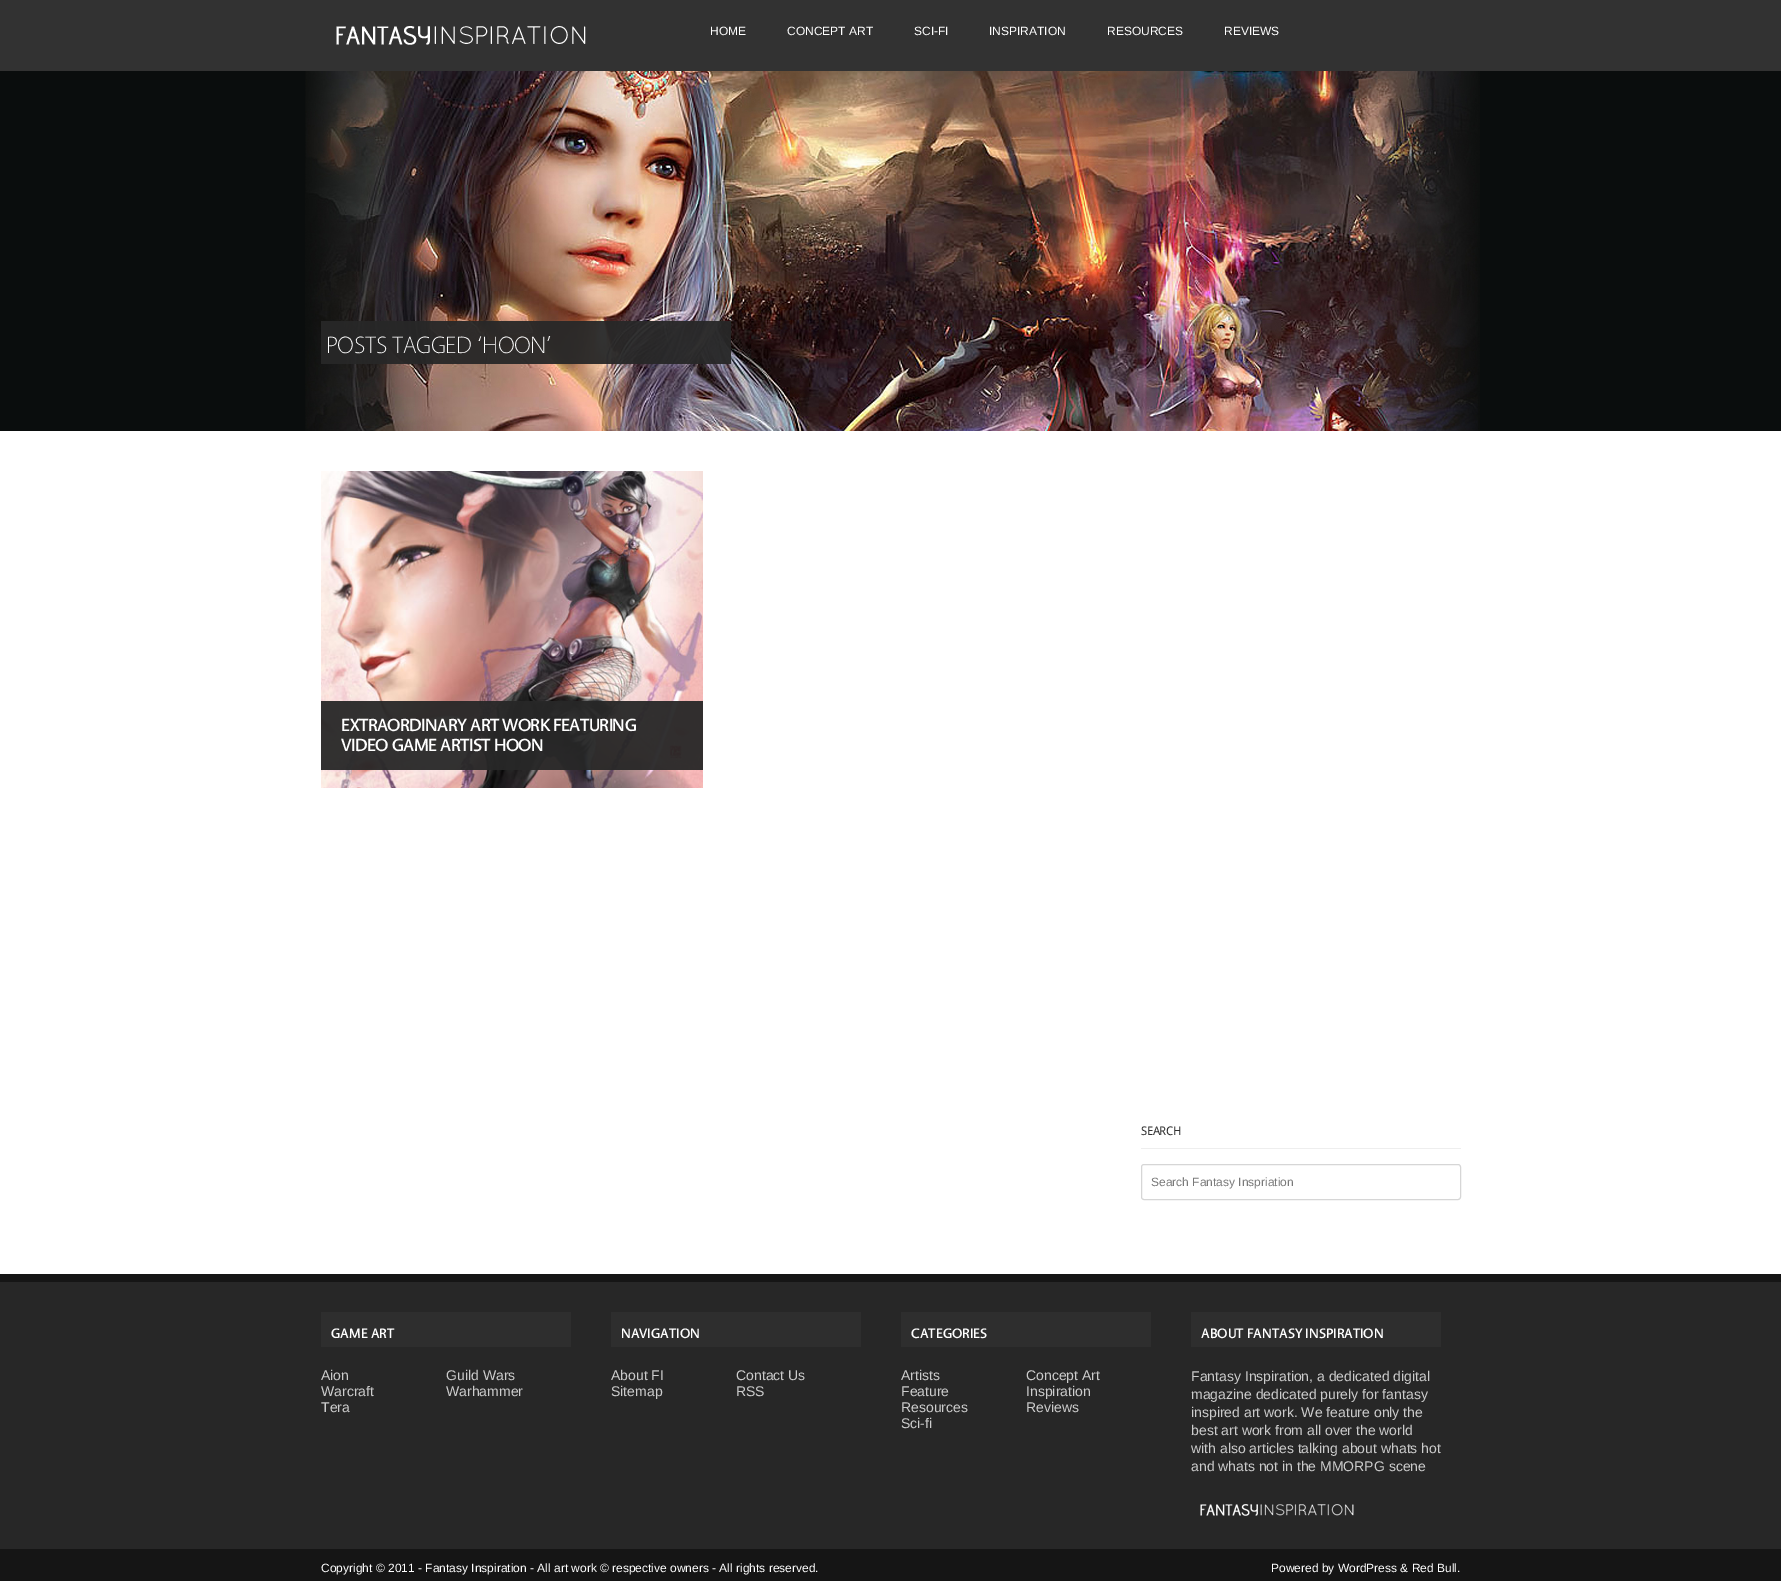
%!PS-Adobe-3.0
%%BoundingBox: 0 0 1781 1581
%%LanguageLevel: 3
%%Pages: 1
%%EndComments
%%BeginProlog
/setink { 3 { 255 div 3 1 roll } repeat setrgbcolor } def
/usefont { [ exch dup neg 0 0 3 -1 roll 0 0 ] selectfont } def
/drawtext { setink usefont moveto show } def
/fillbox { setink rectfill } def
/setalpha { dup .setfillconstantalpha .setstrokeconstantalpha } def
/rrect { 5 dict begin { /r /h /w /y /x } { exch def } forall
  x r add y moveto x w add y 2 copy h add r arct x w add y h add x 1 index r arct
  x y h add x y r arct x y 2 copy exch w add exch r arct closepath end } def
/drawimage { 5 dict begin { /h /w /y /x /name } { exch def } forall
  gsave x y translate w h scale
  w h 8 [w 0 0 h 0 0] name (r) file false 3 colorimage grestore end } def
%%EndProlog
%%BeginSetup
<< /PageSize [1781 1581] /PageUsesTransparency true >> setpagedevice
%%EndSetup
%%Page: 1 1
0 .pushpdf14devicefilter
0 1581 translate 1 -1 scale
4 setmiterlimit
0 0 1781 1581 255 255 255 fillbox
0 0 1781 71 50 50 50 fillbox
(assets/img1.rgb) 336 26 250 19 drawimage
(HOME) 710 35 /LiberationSans-Regular 12 255 255 255 drawtext
(CONCEPT ART) 787 35 /LiberationSans-Regular 12 255 255 255 drawtext
(SCI-FI) 914 35 /LiberationSans-Regular 12 255 255 255 drawtext
(INSPIRATION) 989 35 /LiberationSans-Regular 12 255 255 255 drawtext
(RESOURCES) 1107 35 /LiberationSans-Regular 12 255 255 255 drawtext
(REVIEWS) 1224 35 /LiberationSans-Regular 12 255 255 255 drawtext
0 71 1781 360 10 13 13 fillbox
(assets/img2.rgb) 305 71 1175 360 drawimage
0.95 setalpha
321 321 410 43 39 39 39 fillbox
/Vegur-Light 24 usefont
1 setalpha
255 255 255 setink
326 353 moveto -0.5 0 (POSTS TAGGED ‘HOON’) ashow
(assets/img3.rgb) 321 471 382 317 drawimage
0.95 setalpha
321 701 382 69 39 39 39 fillbox
/Vegur-Medium 18 usefont
1 setalpha
255 255 255 setink
341 731 moveto -0.5 0 (EXTRAORDINARY ART WORK FEATURING) ashow
341 751 moveto -0.5 0 (VIDEO GAME ARTIST HOON) ashow
1141 1148 320 1 238 238 238 fillbox
/DroidSans-Regular 12 usefont
48 48 48 setink
1141 1135 moveto -0.5 0 (SEARCH) ashow
214 214 214 setink
1141.5 1164.5 319 35 2.5 rrect stroke
(Search Fantasy Inspriation) 1151 1186 /LiberationSans-Regular 12 121 121 121 drawtext
0 1282 1781 267 39 39 39 fillbox
0 1274 1781 8 21 21 21 fillbox
321 1312 250 35 46 46 46 fillbox
(GAME ART) 331 1338 /Vegur-Medium 14 255 255 255 drawtext
(Aion) 321 1380 /LiberationSans-Regular 14 204 204 204 drawtext
(Guild Wars) 446 1380 /LiberationSans-Regular 14 204 204 204 drawtext
(Warcraft) 321 1396 /LiberationSans-Regular 14 204 204 204 drawtext
(Warhammer) 446 1396 /LiberationSans-Regular 14 204 204 204 drawtext
(Tera) 321 1412 /LiberationSans-Regular 14 204 204 204 drawtext
611 1312 250 35 46 46 46 fillbox
(NAVIGATION) 621 1338 /Vegur-Medium 14 255 255 255 drawtext
(About FI) 611 1380 /LiberationSans-Regular 14 204 204 204 drawtext
(Contact Us) 736 1380 /LiberationSans-Regular 14 204 204 204 drawtext
(Sitemap) 611 1396 /LiberationSans-Regular 14 204 204 204 drawtext
(RSS) 736 1396 /LiberationSans-Regular 14 204 204 204 drawtext
901 1312 250 35 46 46 46 fillbox
(CATEGORIES) 911 1338 /Vegur-Medium 14 255 255 255 drawtext
(Artists) 901 1380 /LiberationSans-Regular 14 204 204 204 drawtext
(Concept Art) 1026 1380 /LiberationSans-Regular 14 204 204 204 drawtext
(Feature) 901 1396 /LiberationSans-Regular 14 204 204 204 drawtext
(Inspiration) 1026 1396 /LiberationSans-Regular 14 204 204 204 drawtext
(Resources) 901 1412 /LiberationSans-Regular 14 204 204 204 drawtext
(Reviews) 1026 1412 /LiberationSans-Regular 14 204 204 204 drawtext
(Sci-fi) 901 1428 /LiberationSans-Regular 14 204 204 204 drawtext
1191 1312 250 35 46 46 46 fillbox
(ABOUT FANTASY INSPIRATION) 1201 1338 /Vegur-Medium 14 255 255 255 drawtext
(Fantasy Inspiration, a dedicated digital) 1191 1381 /LiberationSans-Regular 14 204 204 204 drawtext
(magazine dedicated purely for fantasy) 1191 1399 /LiberationSans-Regular 14 204 204 204 drawtext
(inspired art work. We feature only the) 1191 1417 /LiberationSans-Regular 14 204 204 204 drawtext
(best art work from all over the world) 1191 1435 /LiberationSans-Regular 14 204 204 204 drawtext
(with also articles talking about whats hot) 1191 1453 /LiberationSans-Regular 14 204 204 204 drawtext
(and whats not in the MMORPG scene) 1191 1471 /LiberationSans-Regular 14 204 204 204 drawtext
(assets/img4.rgb) 1200 1504 154 12 drawimage
0 1549 1781 32 21 21 21 fillbox
(Copyright © 2011 - Fantasy Inspiration - All art work © respective owners - All rights reserved.) 321 1572 /LiberationSans-Regular 12 255 255 255 drawtext
(Powered by WordPress & Red Bull.) 1271 1572 /LiberationSans-Regular 12 255 255 255 drawtext
.poppdf14devicefilter showpage
%%EOF
